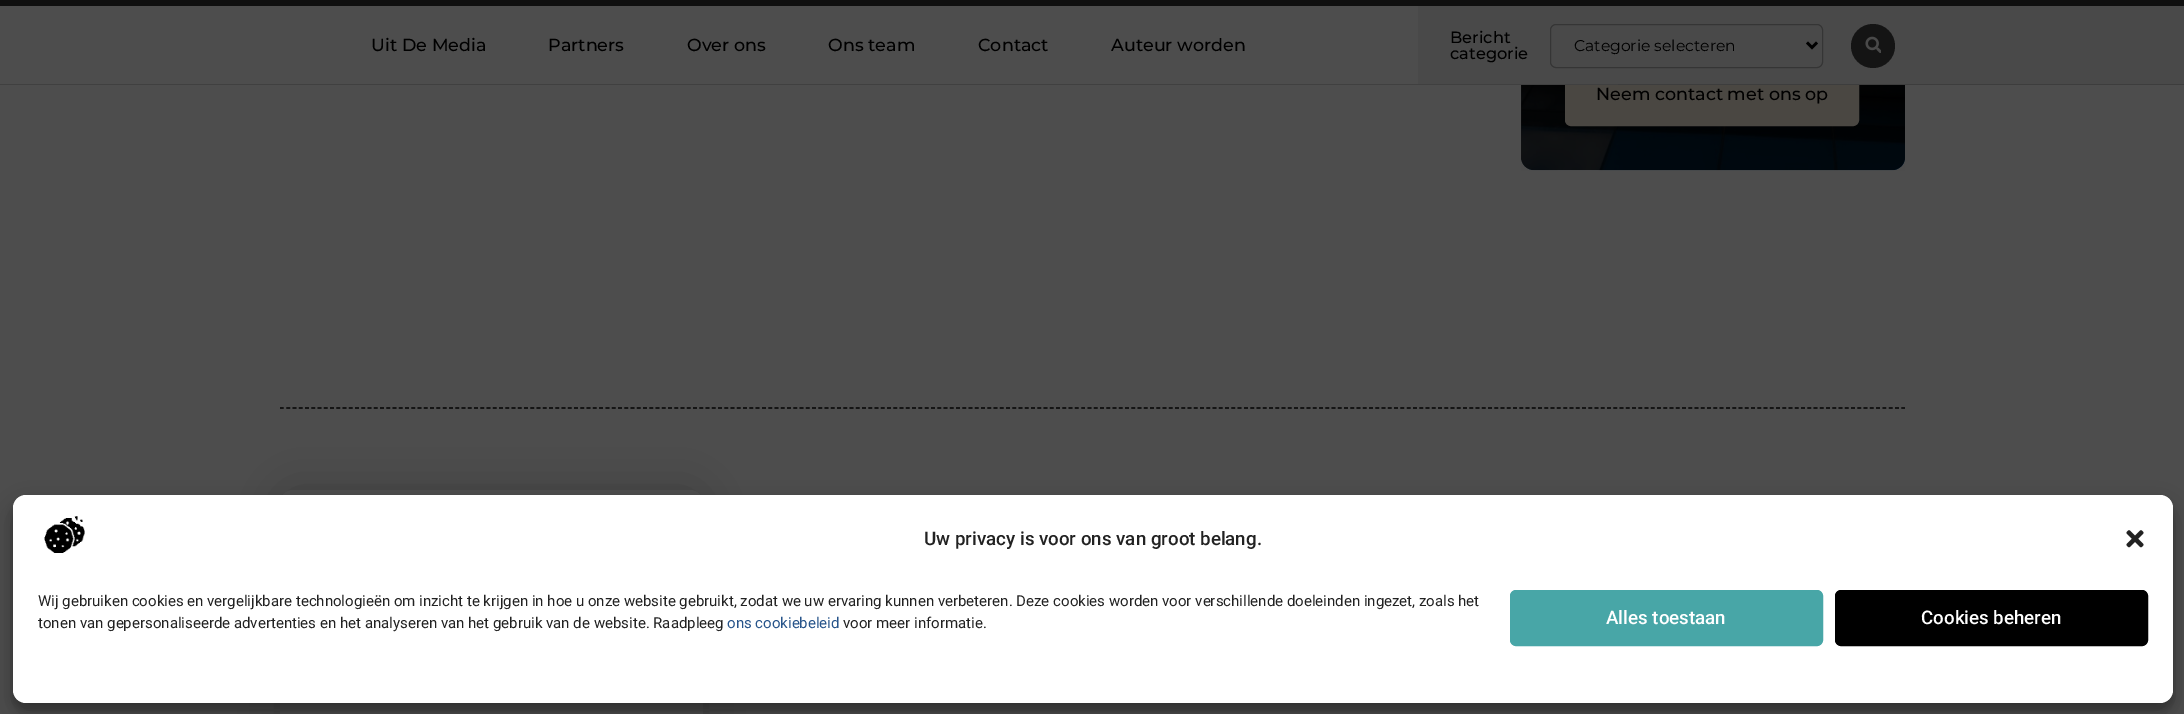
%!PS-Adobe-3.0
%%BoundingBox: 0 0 2184 714
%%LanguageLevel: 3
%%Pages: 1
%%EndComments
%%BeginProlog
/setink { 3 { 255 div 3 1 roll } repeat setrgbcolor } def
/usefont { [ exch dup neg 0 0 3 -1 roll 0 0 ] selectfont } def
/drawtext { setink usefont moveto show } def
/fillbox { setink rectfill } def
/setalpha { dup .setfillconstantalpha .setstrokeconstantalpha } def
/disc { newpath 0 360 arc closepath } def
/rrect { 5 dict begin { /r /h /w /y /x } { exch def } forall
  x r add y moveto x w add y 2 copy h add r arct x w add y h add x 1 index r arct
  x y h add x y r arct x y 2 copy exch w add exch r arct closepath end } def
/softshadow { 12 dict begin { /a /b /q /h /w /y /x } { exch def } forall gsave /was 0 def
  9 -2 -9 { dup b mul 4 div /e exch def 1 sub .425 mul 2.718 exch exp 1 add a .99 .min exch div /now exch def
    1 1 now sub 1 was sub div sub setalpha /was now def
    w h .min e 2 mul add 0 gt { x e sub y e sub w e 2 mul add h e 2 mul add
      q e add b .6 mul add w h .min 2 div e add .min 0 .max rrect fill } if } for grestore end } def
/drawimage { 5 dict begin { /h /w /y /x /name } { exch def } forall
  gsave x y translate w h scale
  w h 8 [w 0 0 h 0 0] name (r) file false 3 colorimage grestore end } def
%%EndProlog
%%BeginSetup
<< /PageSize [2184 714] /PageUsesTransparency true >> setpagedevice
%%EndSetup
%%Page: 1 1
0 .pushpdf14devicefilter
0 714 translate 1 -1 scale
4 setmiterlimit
0 0 2184 714 77 77 77 fillbox
(assets/img2.rgb) 1521 85 384 86 drawimage
0.73 setalpha
0 0 0 setink
1521 -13 384 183 13 rrect fill
1 setalpha
0 0 2184 6 15 15 15 fillbox
74 71 66 setink
1566.5 62.5 291 62 4.5 rrect gsave fill grestore
3 setlinewidth
stroke
1521 6 97 79 77 77 77 fillbox
1618 6 566 79 73 73 73 fillbox
0.17 setalpha
0 84 2184 1 0 0 0 fillbox
1 setalpha
(Uit De Media) 371 51 /Montserrat-Medium 17.5 0 0 0 drawtext
(Partners) 548 51 /Montserrat-Medium 17.5 0 0 0 drawtext
(Over ons) 687 51 /Montserrat-Medium 17.5 0 0 0 drawtext
(Ons team) 828 51 /Montserrat-Medium 17.5 0 0 0 drawtext
(Contact) 978 51 /Montserrat-Medium 17.5 0 0 0 drawtext
(Auteur worden) 1111 51 /Montserrat-Medium 17.5 0 0 0 drawtext
1418 6 200 78 73 73 73 fillbox
(Bericht) 1450 43 /Montserrat-Medium 16.25 0 0 0 drawtext
(categorie) 1450 59 /Montserrat-Medium 16.25 0 0 0 drawtext
53 53 53 setink
1 setlinewidth
1550.5 24.5 272 43 5.5 rrect stroke
0 0 0 setink
2.5 setlinewidth
1807 42.5 moveto 1812 47.5 lineto 1817 42.5 lineto stroke
(Categorie selecteren) 1574 51 /Montserrat-Regular 15.6 0 0 0 drawtext
20 20 20 setink
1873 46 22 disc fill
(assets/img1.rgb) 1865 36 16 17 drawimage
(Neem contact met ons op) 1596 100 /Montserrat-Medium 17.5 0 0 0 drawtext
1.2 setlinewidth
[3.75 2.51] 0 setdash
280 408 moveto 1905 408 lineto stroke
280 490 423 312 13 25 0.16 softshadow
77 77 77 setink
280 490 423 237 13 rrect fill
0 0 0 setink
13 503 2160 207 13 4 0.23 softshadow
13 508 2160 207 13 12.5 0.19 softshadow
255 255 255 setink
13 495 2160 208 13 rrect fill
(assets/img3.rgb) 44 516 41 37 drawimage
(Uw privacy is voor ons van groot belang.) 924 545 /Roboto-Medium 18.75 34 34 34 drawtext
(assets/img4.rgb) 2126 530 18 18 drawimage
(Wij gebruiken cookies en vergelijkbare technologieën om inzicht te krijgen in hoe u onze website gebruikt, zodat we uw ervaring kunnen verbeteren. Deze cookies worden voor verschillende doeleinden ingezet, zoals het) 38 606 /Roboto-Regular 15 34 34 34 drawtext
(tonen van gepersonaliseerde advertenties en het analyseren van het gebruik van de website. Raadpleeg) 38 628 /Roboto-Regular 15 34 34 34 drawtext
(ons cookiebeleid) 727 628 /Roboto-Regular 15 39 84 138 drawtext
(voor meer informatie.) 843 628 /Roboto-Regular 15 34 34 34 drawtext
72 166 167 setink
1510.5 590.5 312 55 5.5 rrect gsave fill grestore
1 setlinewidth
[] 0 setdash
stroke
(Alles toestaan) 1606 624 /Roboto-Medium 18.75 255 255 255 drawtext
0 0 0 setink
1835.5 590.5 312 55 5.5 rrect gsave fill grestore
stroke
(Cookies beheren) 1921 624 /Roboto-Medium 18.75 255 255 255 drawtext
.poppdf14devicefilter showpage
%%EOF
